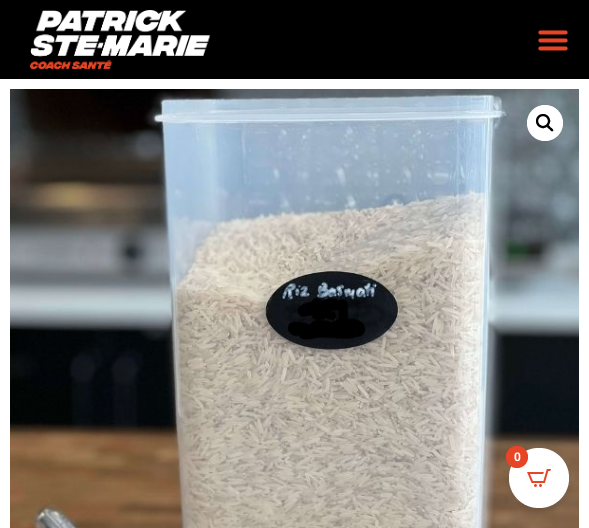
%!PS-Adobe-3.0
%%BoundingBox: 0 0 589 528
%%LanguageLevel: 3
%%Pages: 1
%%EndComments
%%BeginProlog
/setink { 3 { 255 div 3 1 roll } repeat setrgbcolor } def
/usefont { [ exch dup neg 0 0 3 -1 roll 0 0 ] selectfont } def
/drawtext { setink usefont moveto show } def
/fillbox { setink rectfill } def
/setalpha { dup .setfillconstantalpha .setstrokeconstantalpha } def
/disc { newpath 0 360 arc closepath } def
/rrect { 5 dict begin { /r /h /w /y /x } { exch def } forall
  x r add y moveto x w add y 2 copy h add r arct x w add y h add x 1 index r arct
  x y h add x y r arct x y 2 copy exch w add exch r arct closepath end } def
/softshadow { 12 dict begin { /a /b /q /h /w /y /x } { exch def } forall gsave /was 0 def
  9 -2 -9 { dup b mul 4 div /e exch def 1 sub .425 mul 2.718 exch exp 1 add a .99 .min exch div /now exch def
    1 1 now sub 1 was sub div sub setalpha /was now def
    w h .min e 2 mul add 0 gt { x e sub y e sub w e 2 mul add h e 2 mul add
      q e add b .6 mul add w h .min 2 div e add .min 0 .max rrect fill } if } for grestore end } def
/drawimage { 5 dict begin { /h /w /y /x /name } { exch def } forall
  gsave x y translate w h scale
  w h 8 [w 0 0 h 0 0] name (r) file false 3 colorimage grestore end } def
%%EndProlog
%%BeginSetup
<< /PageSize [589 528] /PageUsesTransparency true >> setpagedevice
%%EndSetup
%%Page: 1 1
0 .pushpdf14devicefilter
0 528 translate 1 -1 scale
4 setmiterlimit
0 0 589 528 255 255 255 fillbox
0 0 589 79 0 0 0 fillbox
(assets/img1.rgb) 30 10 180 60 drawimage
(assets/img2.rgb) 538 30 30 21 drawimage
(assets/img3.rgb) 10 89 569 439 drawimage
255 255 255 setink
545 123 18 disc fill
0 0 0 setink
2 setlinewidth
543 121 6 disc stroke
547 125.5 moveto 548.5 124 550 127 550.5 127.5 curveto 551.5 128 554 130 553 131 curveto 551.5 132 550 129.5 549.5 129 curveto 548.5 128.5 546 126.5 547 125.5 curveto closepath fill
509 452 60 60 30 3.5 0.1 softshadow
255 255 255 setink
539 478 30 disc fill
231 69 37 setink
517 457 11 disc fill
(0) 514 461 /Roboto-Bold 12 255 255 255 drawtext
(assets/img4.rgb) 527 469 24 18 drawimage
.poppdf14devicefilter showpage
%%EOF
